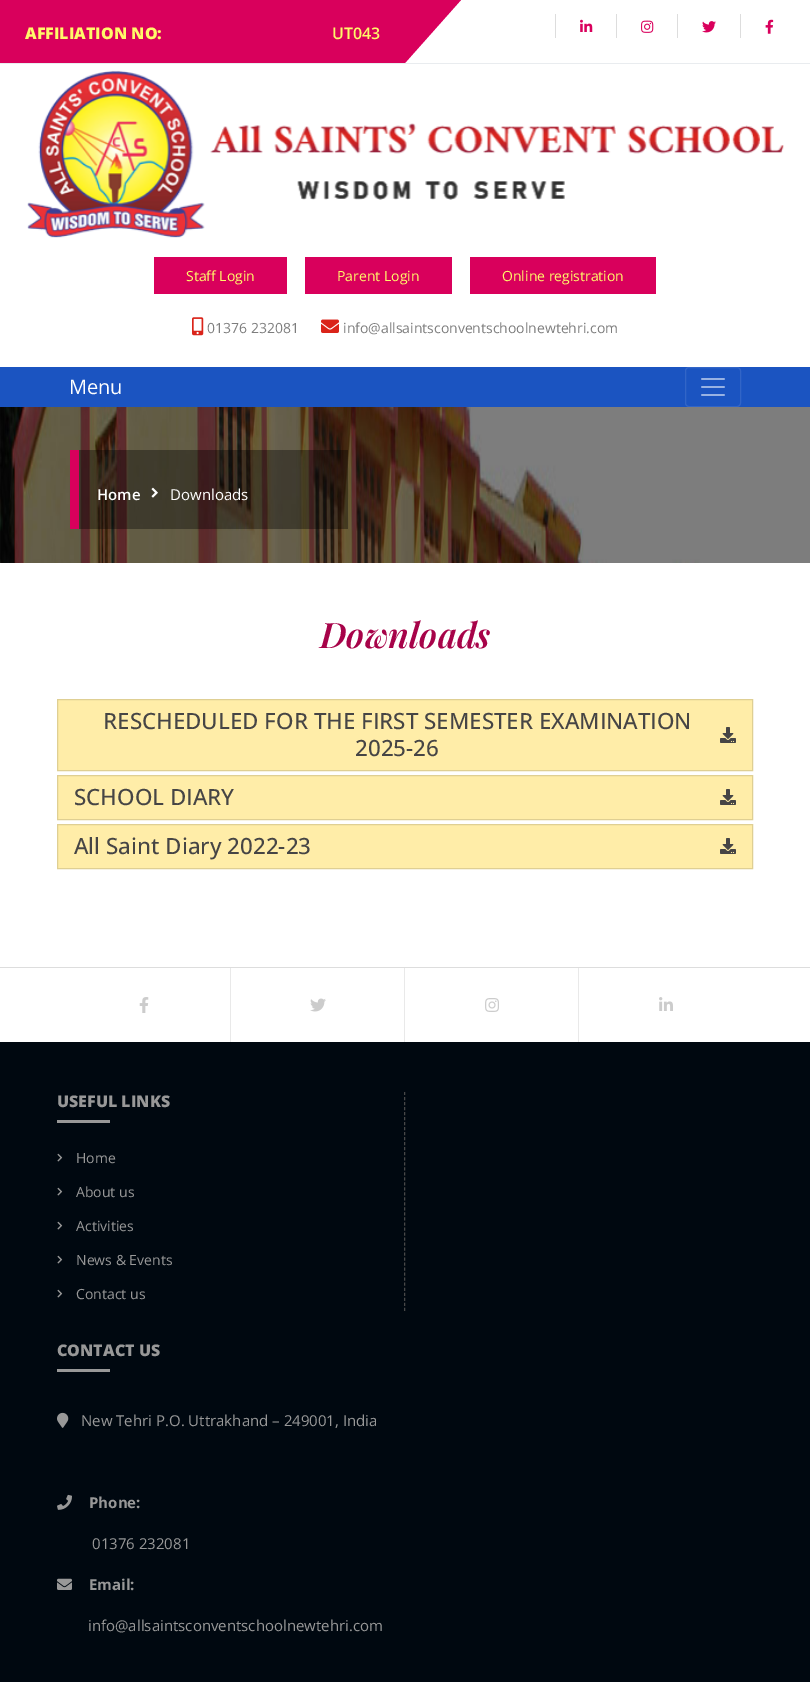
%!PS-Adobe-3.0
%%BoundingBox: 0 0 810 1682
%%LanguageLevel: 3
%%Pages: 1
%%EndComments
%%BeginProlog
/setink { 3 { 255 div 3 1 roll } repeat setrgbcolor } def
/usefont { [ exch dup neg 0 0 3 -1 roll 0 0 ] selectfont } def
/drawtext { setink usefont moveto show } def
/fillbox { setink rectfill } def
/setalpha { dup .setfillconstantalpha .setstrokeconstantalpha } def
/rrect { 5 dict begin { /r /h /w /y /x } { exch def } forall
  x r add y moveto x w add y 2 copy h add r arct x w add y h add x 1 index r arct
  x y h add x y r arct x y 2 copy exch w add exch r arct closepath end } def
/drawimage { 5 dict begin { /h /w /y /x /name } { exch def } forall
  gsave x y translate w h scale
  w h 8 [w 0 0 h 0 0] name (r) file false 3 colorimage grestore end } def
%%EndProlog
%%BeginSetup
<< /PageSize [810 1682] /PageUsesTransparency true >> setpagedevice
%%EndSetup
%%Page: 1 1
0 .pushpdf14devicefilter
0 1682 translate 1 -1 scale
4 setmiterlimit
0 0 810 1682 255 255 255 fillbox
0 63 810 1 233 236 239 fillbox
0 0 405 63 217 0 92 fillbox
(AFFILIATION NO:) 25 39 /OpenSans-ExtraBold 16 255 249 105 drawtext
(UT043) 332 39 /OpenSans-SemiBold 16 255 249 105 drawtext
217 0 92 setink
405 63 moveto 405 0 lineto 461 0 lineto closepath fill
555 14 1 24 221 221 221 fillbox
(assets/img1.rgb) 580 19 13 13 drawimage
616 14 1 24 221 221 221 fillbox
(assets/img2.rgb) 641 20 13 13 drawimage
677 14 1 24 221 221 221 fillbox
(assets/img3.rgb) 702 21 14 12 drawimage
740 14 1 24 221 221 221 fillbox
(assets/img4.rgb) 765 19 9 15 drawimage
(assets/img5.rgb) 27 70 757 168 drawimage
154 257 133 37 217 0 92 fillbox
(Staff Login) 186 281 /OpenSans-Regular 14 255 249 105 drawtext
305 257 147 37 217 0 92 fillbox
(Parent Login) 337 281 /OpenSans-Regular 14 255 249 105 drawtext
470 257 186 37 217 0 92 fillbox
(Online registration) 502 281 /OpenSans-Regular 14 255 249 105 drawtext
(assets/img6.rgb) 192 317 12 19 drawimage
(01376 232081) 207 333 /OpenSans-Regular 14 125 125 125 drawtext
(assets/img7.rgb) 321 319 18 14 drawimage
(info@allsaintsconventschoolnewtehri.com) 343 333 /OpenSans-Regular 14 125 125 125 drawtext
0 367 810 40 27 84 193 fillbox
(Menu) 69 394 /OpenSans-Regular 20 255 255 255 drawtext
50 101 199 setink
685.5 367.5 55 39 3.5 rrect stroke
(assets/img8.rgb) 701 378 24 18 drawimage
(assets/img9.rgb) 0 407 810 156 drawimage
0.36 setalpha
79 450 269 79 0 0 0 fillbox
1 setalpha
70 450 9 79 217 0 92 fillbox
(Home) 97 500 /OpenSans-SemiBold 15 255 255 255 drawtext
(assets/img10.rgb) 151 487 7 11 drawimage
(Downloads) 170 500 /OpenSans-Regular 15 255 255 255 drawtext
(Downloads) 320 648 /PlayfairDisplay-SemiBoldItalic 35 167 3 73 drawtext
255 237 168 setink
57.5 699.5 moveto 752.5 699.5 lineto 752.5 770.5 lineto 57.5 770.5 lineto closepath gsave fill grestore
223 207 147 setink
stroke
(RESCHEDULED FOR THE FIRST SEMESTER EXAMINATION) 103 729 /OpenSans-Medium 22.4 70 69 69 drawtext
(2025-26) 355 756 /OpenSans-Medium 22.4 70 69 69 drawtext
(assets/img11.rgb) 720 727 16 16 drawimage
255 237 168 setink
57.5 775.5 moveto 752.5 775.5 lineto 752.5 819.5 lineto 57.5 819.5 lineto closepath gsave fill grestore
223 207 147 setink
stroke
(SCHOOL DIARY) 74 805 /OpenSans-Medium 22.4 70 69 69 drawtext
(assets/img11.rgb) 720 789 16 16 drawimage
255 237 168 setink
57.5 824.5 moveto 752.5 824.5 lineto 752.5 868.5 lineto 57.5 868.5 lineto closepath gsave fill grestore
223 207 147 setink
stroke
(All Saint Diary 2022-23) 74 854 /OpenSans-Medium 22.4 70 69 69 drawtext
(assets/img11.rgb) 720 838 16 16 drawimage
0 967 810 1 221 221 221 fillbox
230 968 1 74 233 233 233 fillbox
(assets/img12.rgb) 139 997 10 16 drawimage
404 968 1 74 233 233 233 fillbox
(assets/img13.rgb) 310 998 16 14 drawimage
578 968 1 74 233 233 233 fillbox
(assets/img14.rgb) 485 998 14 14 drawimage
(assets/img15.rgb) 659 997 14 14 drawimage
0 1042 810 640 0 8 16 fillbox
72 72 72 setink
[3 2.02] 0 setdash
404.5 1092 moveto 404.5 1311 lineto stroke
(USEFUL LINKS) 57 1107 /OpenSans-ExtraBold 16 152 152 152 drawtext
57 1120 53 3 152 152 152 fillbox
(assets/img16.rgb) 57 1153 6 9 drawimage
(Home) 76 1163 /OpenSans-Regular 14 152 152 152 drawtext
(assets/img16.rgb) 57 1187 6 9 drawimage
(About us) 76 1197 /OpenSans-Regular 14 152 152 152 drawtext
(assets/img16.rgb) 57 1221 6 9 drawimage
(Activities) 76 1231 /OpenSans-Regular 14 152 152 152 drawtext
(assets/img16.rgb) 57 1255 6 9 drawimage
(News & Events) 76 1265 /OpenSans-Regular 14 152 152 152 drawtext
(assets/img16.rgb) 57 1289 6 9 drawimage
(Contact us) 76 1299 /OpenSans-Regular 14 152 152 152 drawtext
(CONTACT US) 57 1356 /OpenSans-ExtraBold 16 152 152 152 drawtext
57 1369 53 3 152 152 152 fillbox
(assets/img17.rgb) 57 1412 12 16 drawimage
(New Tehri P.O. Uttrakhand – 249001, India) 81 1426 /OpenSans-Regular 15 152 152 152 drawtext
(assets/img18.rgb) 57 1494 15 16 drawimage
(Phone:) 89 1508 /OpenSans-Bold 15 152 152 152 drawtext
(01376 232081) 92 1549 /OpenSans-Regular 15 152 152 152 drawtext
(assets/img19.rgb) 57 1578 15 12 drawimage
(Email:) 89 1590 /OpenSans-Bold 15 152 152 152 drawtext
(info@allsaintsconventschoolnewtehri.com) 88 1631 /OpenSans-Regular 15 152 152 152 drawtext
.poppdf14devicefilter showpage
%%EOF
